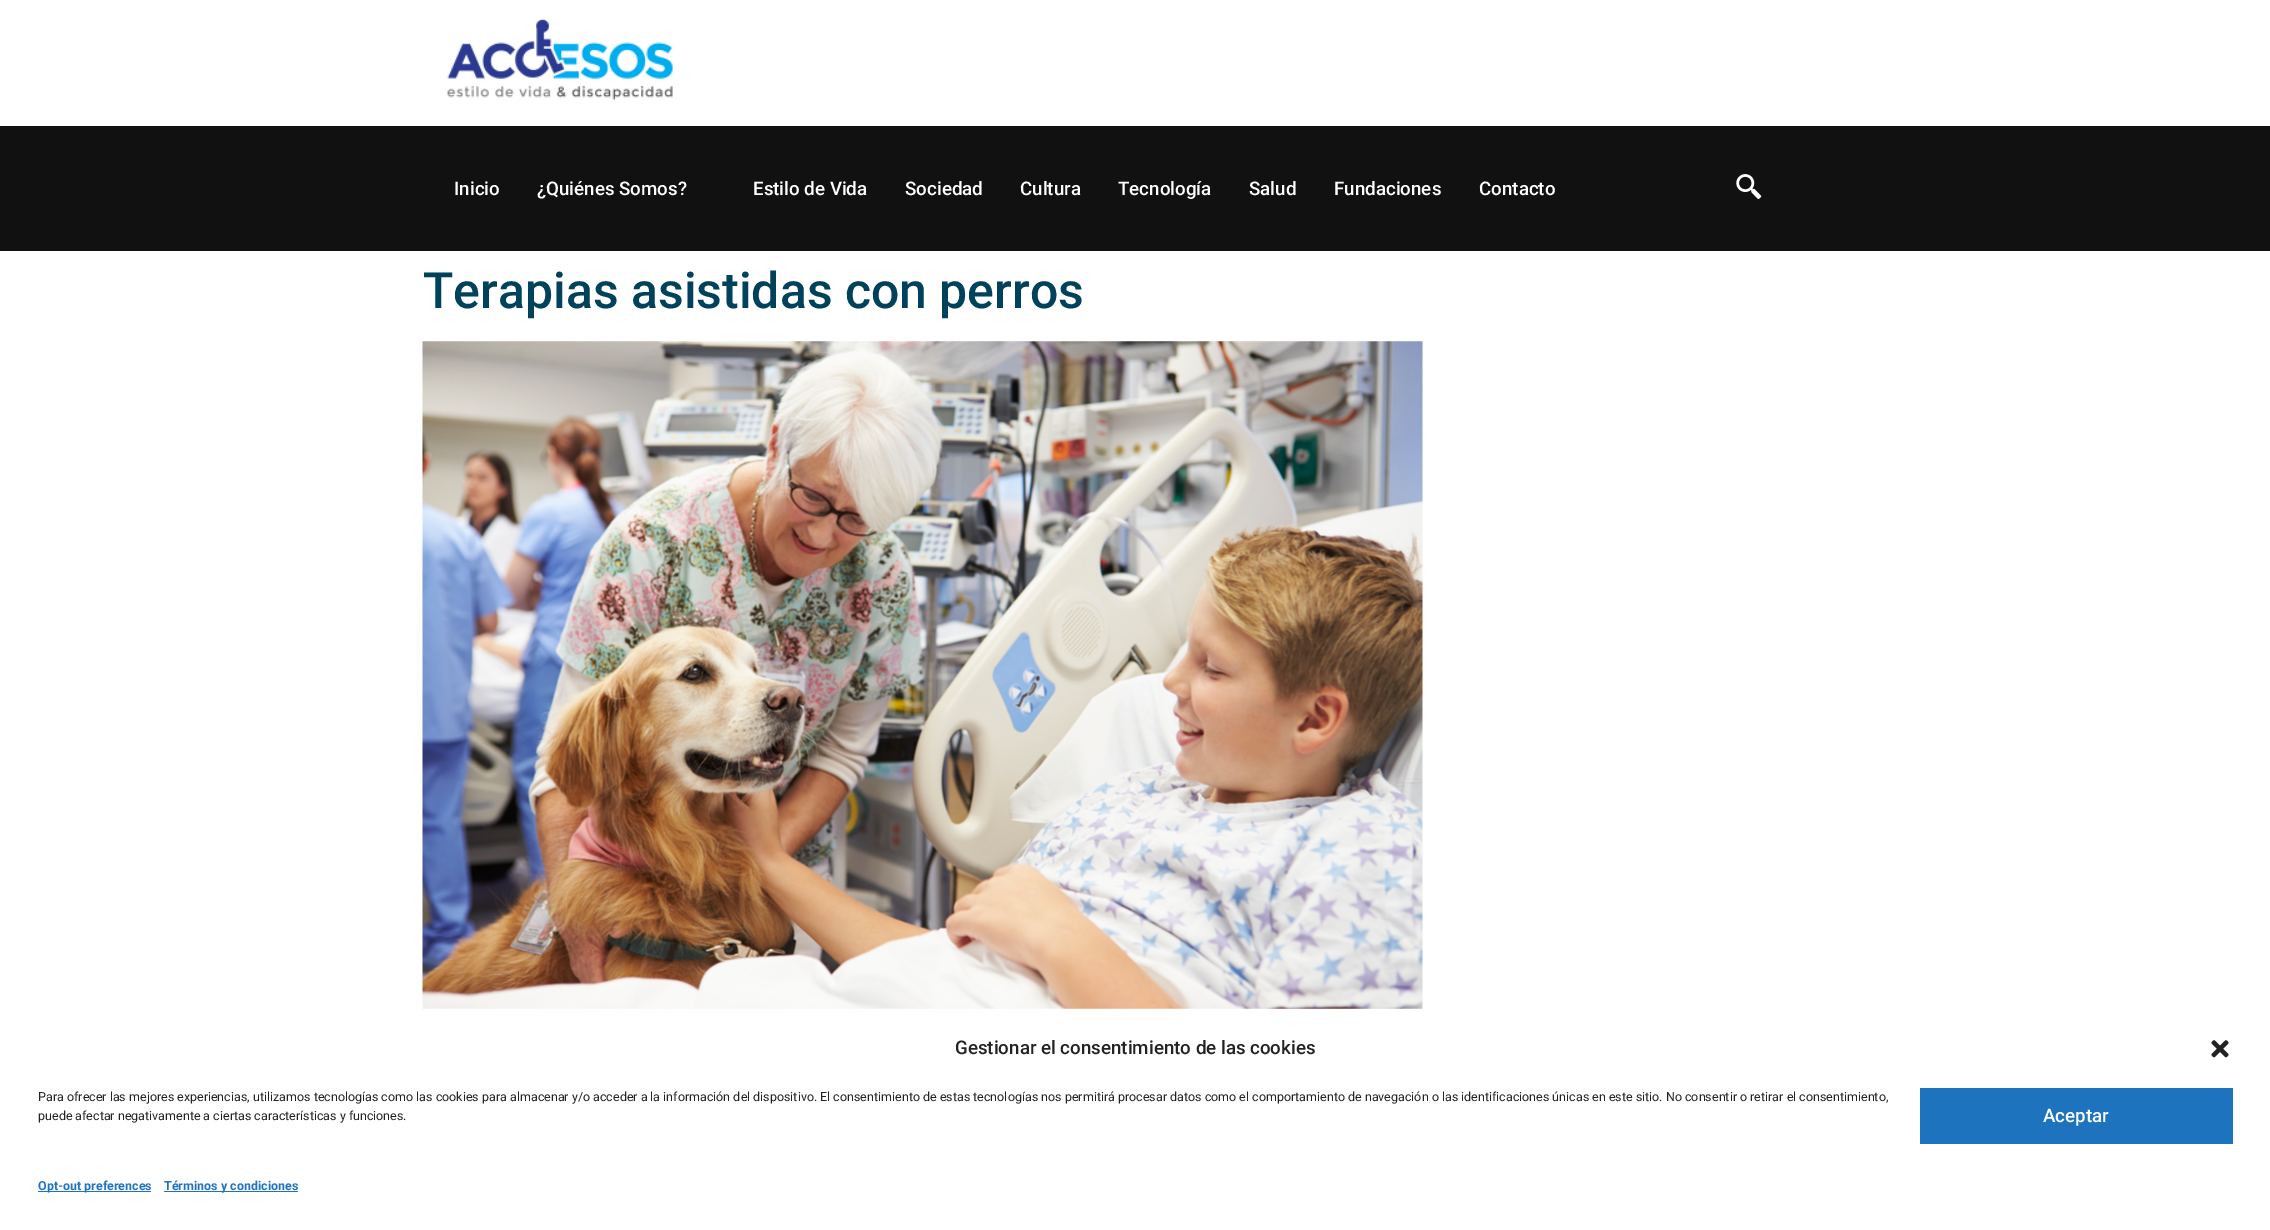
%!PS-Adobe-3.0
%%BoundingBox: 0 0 2270 1230
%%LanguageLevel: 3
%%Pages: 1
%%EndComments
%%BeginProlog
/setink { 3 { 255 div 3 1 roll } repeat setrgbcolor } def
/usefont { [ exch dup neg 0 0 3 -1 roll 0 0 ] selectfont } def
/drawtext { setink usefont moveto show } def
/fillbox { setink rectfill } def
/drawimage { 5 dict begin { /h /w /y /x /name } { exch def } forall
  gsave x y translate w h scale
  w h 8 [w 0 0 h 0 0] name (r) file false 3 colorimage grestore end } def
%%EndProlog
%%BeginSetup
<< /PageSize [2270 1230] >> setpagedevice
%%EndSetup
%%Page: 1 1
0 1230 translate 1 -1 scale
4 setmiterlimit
0 0 2270 1230 255 255 255 fillbox
(assets/img1.rgb) 447 18 226 83 drawimage
0 126 2270 125 17 17 17 fillbox
(Inicio) 454 195 /Roboto-Medium 18.75 255 255 255 drawtext
(¿Quiénes Somos?) 537 195 /Roboto-Medium 18.75 255 255 255 drawtext
(Estilo de Vida) 753 195 /Roboto-Medium 18.75 255 255 255 drawtext
(Sociedad) 905 195 /Roboto-Medium 18.75 255 255 255 drawtext
(Cultura) 1020 195 /Roboto-Medium 18.75 255 255 255 drawtext
(Tecnología) 1118 195 /Roboto-Medium 18.75 255 255 255 drawtext
(Salud) 1249 195 /Roboto-Medium 18.75 255 255 255 drawtext
(Fundaciones) 1334 195 /Roboto-Medium 18.75 255 255 255 drawtext
(Contacto) 1479 195 /Roboto-Medium 18.75 255 255 255 drawtext
(assets/img2.rgb) 1736 174 26 25 drawimage
(Terapias asistidas con perros) 423 308 /Roboto-Medium 50 0 66 91 drawtext
(assets/img3.rgb) 422 341 1001 668 drawimage
(Gestionar el consentimiento de las cookies) 955 1054 /Roboto-Medium 18.75 34 34 34 drawtext
(assets/img4.rgb) 2211 1040 18 18 drawimage
(Para ofrecer las mejores experiencias, utilizamos tecnologías como las cookies para almacenar y/o acceder a la información del dispositivo. El consentimiento de estas tecnologías nos permitirá procesar datos como el comportamiento de navegación o las identificaciones únicas en este sitio. No consentir o retirar el consentimiento,) 38 1101 /Roboto-Regular 12.5 34 34 34 drawtext
(puede afectar negativamente a ciertas características y funciones.) 38 1120 /Roboto-Regular 12.5 34 34 34 drawtext
1920 1088 313 56 30 115 190 fillbox
(Aceptar) 2043 1122 /Roboto-Medium 18.75 255 255 255 drawtext
38 1191 113 1 30 115 190 fillbox
(Opt-out preferences) 38 1190 /Roboto-Bold 12.5 30 115 190 drawtext
164 1191 134 1 30 115 190 fillbox
(Términos y condiciones) 164 1190 /Roboto-Bold 12.5 30 115 190 drawtext
showpage
%%EOF
